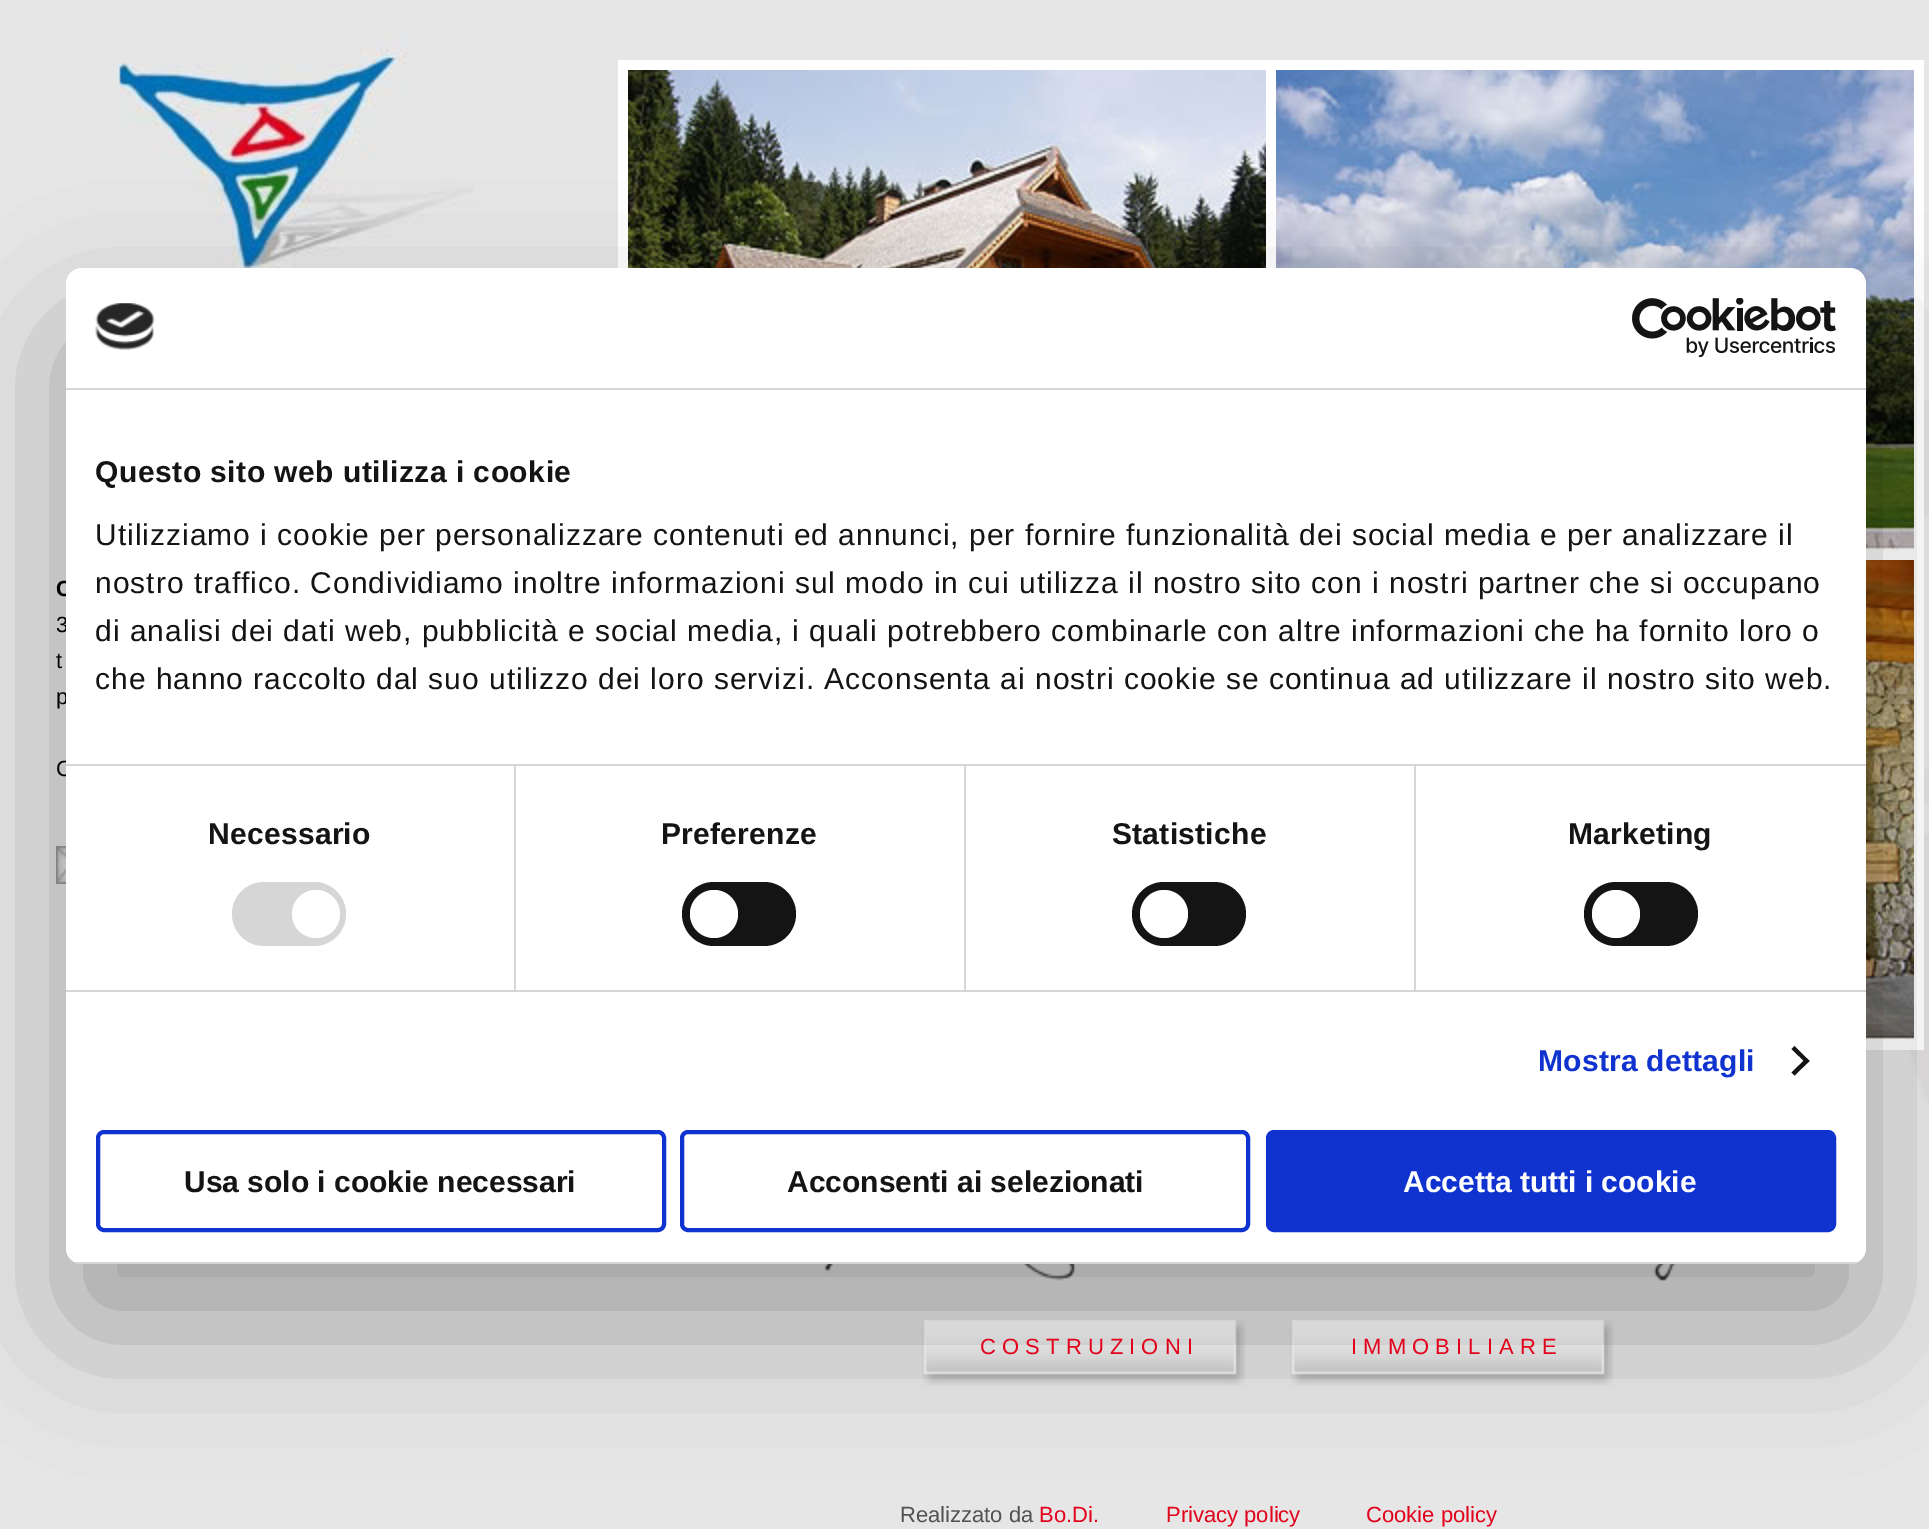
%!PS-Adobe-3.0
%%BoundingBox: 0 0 1929 1529
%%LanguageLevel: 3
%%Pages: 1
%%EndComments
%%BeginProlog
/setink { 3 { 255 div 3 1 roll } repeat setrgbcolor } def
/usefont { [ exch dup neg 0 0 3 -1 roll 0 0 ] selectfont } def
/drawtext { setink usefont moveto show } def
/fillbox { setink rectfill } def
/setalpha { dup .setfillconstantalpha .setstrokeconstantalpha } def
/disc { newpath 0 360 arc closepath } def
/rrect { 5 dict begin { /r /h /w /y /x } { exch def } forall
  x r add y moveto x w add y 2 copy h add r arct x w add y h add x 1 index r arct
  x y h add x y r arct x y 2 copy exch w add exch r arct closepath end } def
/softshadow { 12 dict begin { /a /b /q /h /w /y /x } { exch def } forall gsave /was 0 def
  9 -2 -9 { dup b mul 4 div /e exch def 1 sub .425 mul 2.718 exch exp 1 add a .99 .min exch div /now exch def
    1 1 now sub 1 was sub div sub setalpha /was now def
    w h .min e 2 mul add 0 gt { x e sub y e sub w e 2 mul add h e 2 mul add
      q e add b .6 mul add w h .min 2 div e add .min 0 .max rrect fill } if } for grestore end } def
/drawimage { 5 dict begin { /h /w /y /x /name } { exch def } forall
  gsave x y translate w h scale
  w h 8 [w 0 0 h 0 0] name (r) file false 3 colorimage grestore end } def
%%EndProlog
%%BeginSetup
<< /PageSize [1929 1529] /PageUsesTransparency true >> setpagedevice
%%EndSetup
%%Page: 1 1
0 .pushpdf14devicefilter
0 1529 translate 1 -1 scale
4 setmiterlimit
0 0 1929 1529 230 230 230 fillbox
(assets/img1.rgb) 1866 306 63 797 drawimage
(assets/img4.rgb) 113 33 360 235 drawimage
(assets/img5.rgb) 56 846 10 38 drawimage
618 60 1306 990 255 255 255 fillbox
(assets/img6.rgb) 628 70 638 198 drawimage
(assets/img7.rgb) 1276 70 638 480 drawimage
(assets/img8.rgb) 1866 560 48 480 drawimage
(assets/img9.rgb) 763 1264 1018 17 drawimage
(assets/img10.rgb) 922 1319 324 67 drawimage
(assets/img10.rgb) 1290 1319 324 67 drawimage
0 0 0 setink
66 332 1800 996 16 68 0.3 softshadow
(C) 56 596 /LiberationSans-Bold 22 0 0 0 drawtext
(3) 56 632 /LiberationSans-Regular 22 0 0 0 drawtext
(p) 56 704 /LiberationSans-Regular 22 0 0 0 drawtext
(C) 56 776 /LiberationSans-Regular 22 0 0 0 drawtext
255 255 255 setink
66 268 1800 996 16 rrect fill
66 388 1800 2 214 214 214 fillbox
(assets/img2.rgb) 95 303 60 47 drawimage
(assets/img3.rgb) 1632 298 204 60 drawimage
66 764 1800 2 214 214 214 fillbox
/LiberationSans-Bold 30 usefont
20 20 20 setink
95 482 moveto 0.5 0 (Questo sito web utilizza i cookie) ashow
/LiberationSans-Regular 30 usefont
95 545 moveto 1 0 (Utilizziamo i cookie per personalizzare contenuti ed annunci, per fornire funzionalità dei social media e per analizzare il) ashow
95 593 moveto 1 0 (nostro traffico. Condividiamo inoltre informazioni sul modo in cui utilizza il nostro sito con i nostri partner che si occupano) ashow
95 641 moveto 1 0 (di analisi dei dati web, pubblicità e social media, i quali potrebbero combinarle con altre informazioni che ha fornito loro o) ashow
95 689 moveto 1 0 (che hanno raccolto dal suo utilizzo dei loro servizi. Acconsenta ai nostri cookie se continua ad utilizzare il nostro sito web.) ashow
66 990 1800 2 214 214 214 fillbox
514 766 2 224 214 214 214 fillbox
/LiberationSans-Bold 30 usefont
20 20 20 setink
208 844 moveto 0.25 0 (Necessario) ashow
214 214 214 setink
232 882 114 64 32 rrect fill
255 255 255 setink
316 914 24 disc fill
964 766 2 224 214 214 214 fillbox
20 20 20 setink
661 844 moveto 0.25 0 (Preferenze) ashow
682 882 114 64 32 rrect fill
255 255 255 setink
714 914 24 disc fill
1414 766 2 224 214 214 214 fillbox
20 20 20 setink
1112 844 moveto 0.25 0 (Statistiche) ashow
1132 882 114 64 32 rrect fill
255 255 255 setink
1164 914 24 disc fill
20 20 20 setink
1568 844 moveto 0.25 0 (Marketing) ashow
1584 882 114 64 32 rrect fill
255 255 255 setink
1616 914 24 disc fill
16 50 207 setink
1538 1071 moveto 0.25 0 (Mostra dettagli) ashow
20 20 20 setink
1794.5 1046 moveto 1809.5 1061 lineto 1806.5 1063.5 lineto 1791.5 1049 lineto closepath fill
1806.5 1058 moveto 1809.5 1061 lineto 1794.5 1075.5 lineto 1791.5 1072.5 lineto closepath fill
gsave
66 268 1800 996 16 rrect clip newpath
66 1262 1800 2 214 214 214 fillbox
grestore
16 50 207 setink
4 setlinewidth
98 1132 566 98 6 rrect stroke
(Usa solo i cookie necessari) 184 1192 /LiberationSans-Bold 30 20 20 20 drawtext
16 50 207 setink
682 1132 566 98 6 rrect stroke
(Acconsenti ai selezionati) 787 1192 /LiberationSans-Bold 30 20 20 20 drawtext
16 50 207 setink
1268 1132 566 98 6 rrect gsave fill grestore
stroke
(Accetta tutti i cookie) 1403 1192 /LiberationSans-Bold 30 255 255 255 drawtext
(t) 56 668 /LiberationSans-Regular 22 0 0 0 drawtext
(C O S T R U Z I O N I) 980 1354 /LiberationSans-Regular 22 226 0 26 drawtext
(I M M O B I L I A R E) 1351 1354 /LiberationSans-Regular 22 226 0 26 drawtext
(Realizzato da) 900 1522 /LiberationSans-Regular 22 82 82 82 drawtext
(Bo.Di.) 1039 1522 /LiberationSans-Regular 22 226 0 26 drawtext
(Privacy policy) 1166 1522 /LiberationSans-Regular 22 226 0 26 drawtext
(Cookie policy) 1366 1522 /LiberationSans-Regular 22 226 0 26 drawtext
.poppdf14devicefilter showpage
%%EOF
